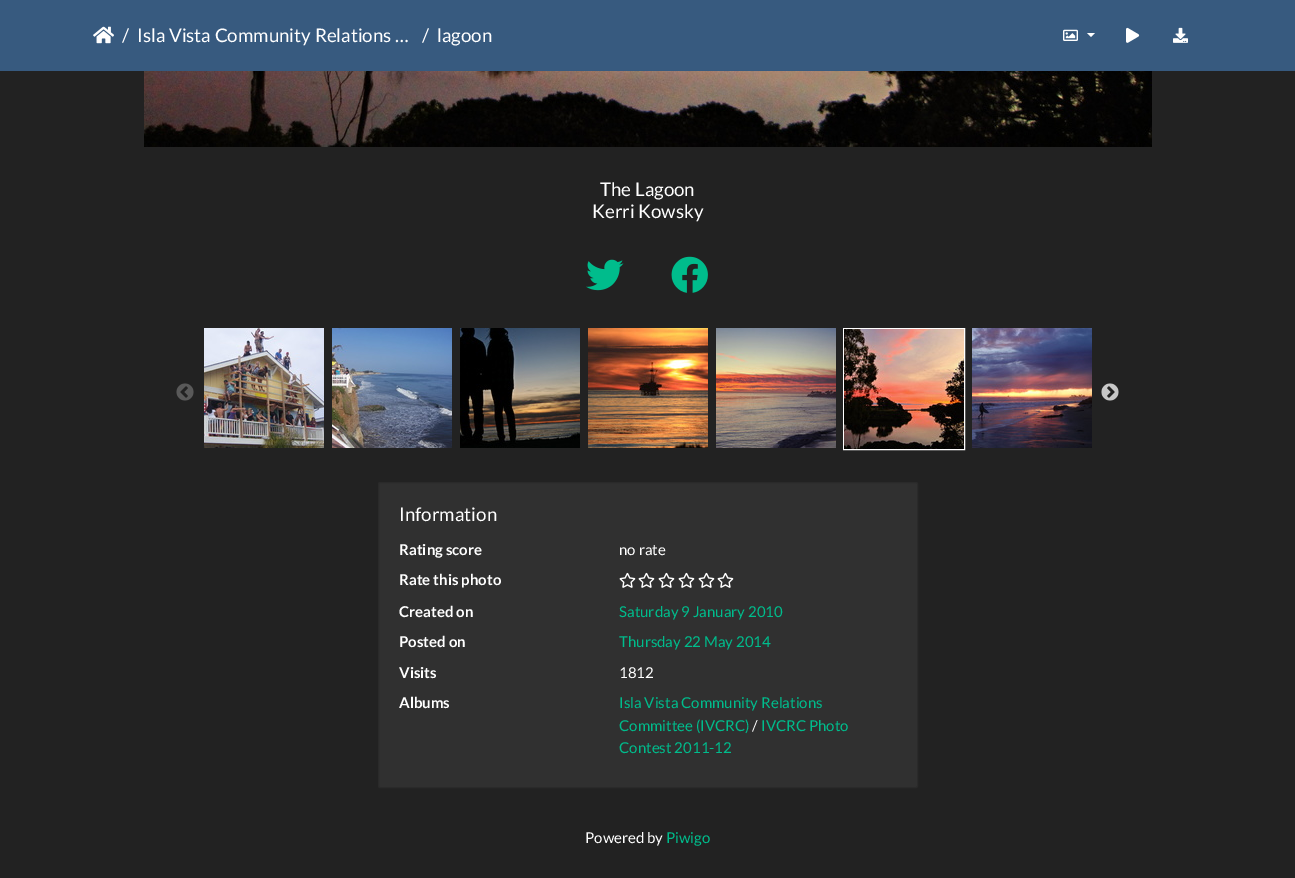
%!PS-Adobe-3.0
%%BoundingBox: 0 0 1295 878
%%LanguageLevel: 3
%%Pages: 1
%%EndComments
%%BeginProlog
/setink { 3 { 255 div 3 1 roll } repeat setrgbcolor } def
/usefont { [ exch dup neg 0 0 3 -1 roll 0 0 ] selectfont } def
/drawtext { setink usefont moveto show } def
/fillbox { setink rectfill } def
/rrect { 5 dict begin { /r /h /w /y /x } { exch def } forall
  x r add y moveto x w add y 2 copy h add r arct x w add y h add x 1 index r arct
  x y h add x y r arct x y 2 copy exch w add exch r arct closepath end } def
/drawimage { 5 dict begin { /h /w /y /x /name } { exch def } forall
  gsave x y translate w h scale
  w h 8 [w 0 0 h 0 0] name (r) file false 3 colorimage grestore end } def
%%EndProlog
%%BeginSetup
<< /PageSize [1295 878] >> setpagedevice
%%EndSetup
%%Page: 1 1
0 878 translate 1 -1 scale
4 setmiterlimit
0 0 1295 878 34 34 34 fillbox
0 0 1295 71 55 90 127 fillbox
(assets/img1.rgb) 93 26 21 18 drawimage
(/) 122 42 /Lato-Regular 18.75 255 255 255 drawtext
(Isla Vista Community Relations …) 137 42 /Lato-Regular 18.75 255 255 255 drawtext
(/) 422 42 /Lato-Regular 18.75 255 255 255 drawtext
(lagoon) 437 42 /Lato-Regular 18.75 255 255 255 drawtext
(assets/img2.rgb) 1063 29 15 12 drawimage
1087 33 moveto 1095 33 lineto 1091 37 lineto closepath fill
(assets/img3.rgb) 1126 27 14 16 drawimage
(assets/img4.rgb) 1173 27 15 16 drawimage
(assets/img5.rgb) 144 71 1008 76 drawimage
(The Lagoon) 600 196 /Lato-Regular 18.75 255 255 255 drawtext
(Kerri Kowsky) 592 218 /Lato-Regular 18.75 255 255 255 drawtext
(assets/img6.rgb) 586 259 38 32 drawimage
(assets/img7.rgb) 671 256 37 37 drawimage
(assets/img8.rgb) 176 383 18 18 drawimage
(assets/img9.rgb) 204 328 120 120 drawimage
(assets/img10.rgb) 332 328 120 120 drawimage
(assets/img11.rgb) 460 328 120 120 drawimage
(assets/img12.rgb) 588 328 120 120 drawimage
(assets/img13.rgb) 716 328 120 120 drawimage
843.5 328.5 121 121 rectstroke
(assets/img14.rgb) 844 329 120 120 drawimage
(assets/img15.rgb) 972 328 120 120 drawimage
(assets/img16.rgb) 1101 383 18 18 drawimage
48 48 48 setink
378.5 482.5 539 305 1.5 rrect gsave fill grestore
42 42 42 setink
stroke
(Information) 399 521 /Lato-Regular 18.75 255 255 255 drawtext
(Rating score) 399 555 /Lato-Bold 15 255 255 255 drawtext
(no rate) 619 555 /Lato-Regular 15 255 255 255 drawtext
(Rate this photo) 399 585 /Lato-Bold 15 255 255 255 drawtext
(assets/img17.rgb) 619 572 17 16 drawimage
(assets/img17.rgb) 638 572 17 16 drawimage
(assets/img17.rgb) 658 572 17 16 drawimage
(assets/img17.rgb) 678 572 17 16 drawimage
(assets/img17.rgb) 698 572 17 16 drawimage
(assets/img17.rgb) 717 572 17 16 drawimage
(Created on) 399 617 /Lato-Bold 15 255 255 255 drawtext
(Saturday 9 January 2010) 619 617 /Lato-Regular 15 0 188 140 drawtext
(Posted on) 399 647 /Lato-Bold 15 255 255 255 drawtext
(Thursday 22 May 2014) 619 647 /Lato-Regular 15 0 188 140 drawtext
(Visits) 399 678 /Lato-Bold 15 255 255 255 drawtext
(1812) 619 678 /Lato-Regular 15 255 255 255 drawtext
(Albums) 399 708 /Lato-Bold 15 255 255 255 drawtext
(Isla Vista Community Relations) 619 708 /Lato-Regular 15 0 188 140 drawtext
(Committee \(IVCRC\)) 619 731 /Lato-Regular 15 0 188 140 drawtext
(/) 752 731 /Lato-Regular 15 255 255 255 drawtext
(IVCRC Photo) 761 731 /Lato-Regular 15 0 188 140 drawtext
(Contest 2011-12) 619 753 /Lato-Regular 15 0 188 140 drawtext
(Powered by) 585 843 /Lato-Regular 15 255 255 255 drawtext
(Piwigo) 666 843 /Lato-Regular 15 0 188 140 drawtext
showpage
%%EOF
